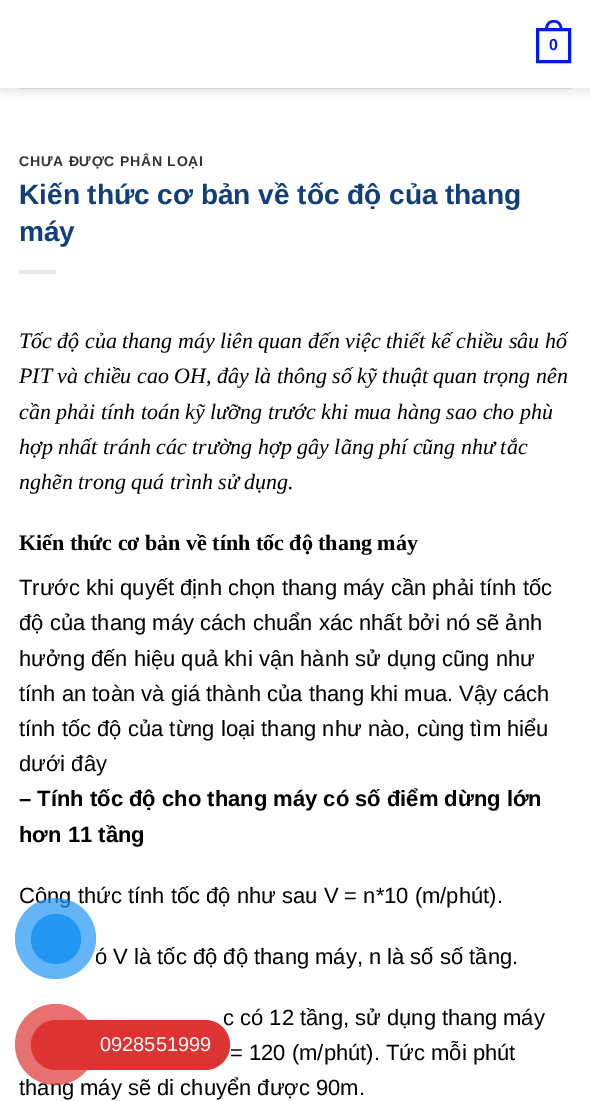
%!PS-Adobe-3.0
%%BoundingBox: 0 0 590 1101
%%LanguageLevel: 3
%%Pages: 1
%%EndComments
%%BeginProlog
/setink { 3 { 255 div 3 1 roll } repeat setrgbcolor } def
/usefont { [ exch dup neg 0 0 3 -1 roll 0 0 ] selectfont } def
/drawtext { setink usefont moveto show } def
/fillbox { setink rectfill } def
/setalpha { dup .setfillconstantalpha .setstrokeconstantalpha } def
/disc { newpath 0 360 arc closepath } def
/rrect { 5 dict begin { /r /h /w /y /x } { exch def } forall
  x r add y moveto x w add y 2 copy h add r arct x w add y h add x 1 index r arct
  x y h add x y r arct x y 2 copy exch w add exch r arct closepath end } def
/softshadow { 12 dict begin { /a /b /q /h /w /y /x } { exch def } forall gsave /was 0 def
  9 -2 -9 { dup b mul 4 div /e exch def 1 sub .425 mul 2.718 exch exp 1 add a .99 .min exch div /now exch def
    1 1 now sub 1 was sub div sub setalpha /was now def
    w h .min e 2 mul add 0 gt { x e sub y e sub w e 2 mul add h e 2 mul add
      q e add b .6 mul add w h .min 2 div e add .min 0 .max rrect fill } if } for grestore end } def
%%EndProlog
%%BeginSetup
<< /PageSize [590 1101] /PageUsesTransparency true >> setpagedevice
%%EndSetup
%%Page: 1 1
0 .pushpdf14devicefilter
0 1101 translate 1 -1 scale
4 setmiterlimit
0 0 590 1101 255 255 255 fillbox
0 0 0 setink
1 1 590 88 0 6 0.15 softshadow
0 0 590 88 255 255 255 fillbox
0 28 242 setink
3 setlinewidth
537.5 29.5 32 32 rectstroke
554 20 moveto 559.5 20 562.5 24.5 562.5 30 curveto 545 30 lineto 545 24.5 548 20 554 20 curveto closepath 554 22.5 moveto 558 22.5 560 26 560 30 curveto 547.5 30 lineto 547.5 26 549.5 22.5 554 22.5 curveto closepath eofill
(0) 549 50 /LiberationSans-Bold 16 0 28 242 drawtext
19 88 552 1 211 211 211 fillbox
/LiberationSans-Bold 14 usefont
51 51 51 setink
19 166 moveto 0.75 0 (CHƯA ĐƯỢC PHÂN LOẠI) ashow
(Kiến thức cơ bản về tốc độ của thang) 19 204 /LiberationSans-Bold 28 17 63 123 drawtext
(máy) 19 241 /LiberationSans-Bold 28 17 63 123 drawtext
19 270 37 4 230 230 230 fillbox
(Tốc độ của thang máy liên quan đến việc thiết kế chiều sâu hố) 19 348 /LiberationSerif-Italic 22 0 0 0 drawtext
(PIT và chiều cao OH, đây là thông số kỹ thuật quan trọng nên) 19 383 /LiberationSerif-Italic 22 0 0 0 drawtext
(cần phải tính toán kỹ lưỡng trước khi mua hàng sao cho phù) 19 419 /LiberationSerif-Italic 22 0 0 0 drawtext
(hợp nhất tránh các trường hợp gây lãng phí cũng như tắc) 19 454 /LiberationSerif-Italic 22 0 0 0 drawtext
(nghẽn trong quá trình sử dụng.) 19 489 /LiberationSerif-Italic 22 0 0 0 drawtext
(Kiến thức cơ bản về tính tốc độ thang máy) 19 550 /LiberationSerif-Bold 22 0 0 0 drawtext
(Trước khi quyết định chọn thang máy cần phải tính tốc) 19 595 /LiberationSans-Regular 22 0 0 0 drawtext
(độ của thang máy cách chuẩn xác nhất bởi nó sẽ ảnh) 19 630 /LiberationSans-Regular 22 0 0 0 drawtext
(hưởng đến hiệu quả khi vận hành sử dụng cũng như) 19 666 /LiberationSans-Regular 22 0 0 0 drawtext
(tính an toàn và giá thành của thang khi mua. Vậy cách) 19 701 /LiberationSans-Regular 22 0 0 0 drawtext
(tính tốc độ của từng loại thang như nào, cùng tìm hiểu) 19 736 /LiberationSans-Regular 22 0 0 0 drawtext
(dưới đây) 19 771 /LiberationSans-Regular 22 0 0 0 drawtext
(– Tính tốc độ cho thang máy có số điểm dừng lớn) 19 806 /LiberationSans-Bold 22 0 0 0 drawtext
(hơn 11 tầng) 19 842 /LiberationSans-Bold 22 0 0 0 drawtext
(Công thức tính tốc độ như sau V = n*10 \(m/phút\).) 19 903 /LiberationSans-Regular 22 0 0 0 drawtext
(ó V là tốc độ độ thang máy, n là số số tầng.) 95 964 /LiberationSans-Regular 22 0 0 0 drawtext
(c có 12 tầng, sử dụng thang máy) 223 1025 /LiberationSans-Regular 22 0 0 0 drawtext
(= 120 \(m/phút\). Tức mỗi phút) 230 1060 /LiberationSans-Regular 22 0 0 0 drawtext
(thang máy sẽ di chuyển được 90m.) 19 1095 /LiberationSans-Regular 22 0 0 0 drawtext
0.7 setalpha
33 150 243 setink
55.5 938.5 40.5 disc fill
1 setalpha
56 939 25 disc fill
221 51 51 setink
38 1020 192 50 25 rrect fill
0.7 setalpha
55.5 1044.5 40.5 disc fill
1 setalpha
56 1045 25 disc fill
(0928551999) 100 1051 /LiberationSans-Regular 20 255 255 255 drawtext
.poppdf14devicefilter showpage
%%EOF
